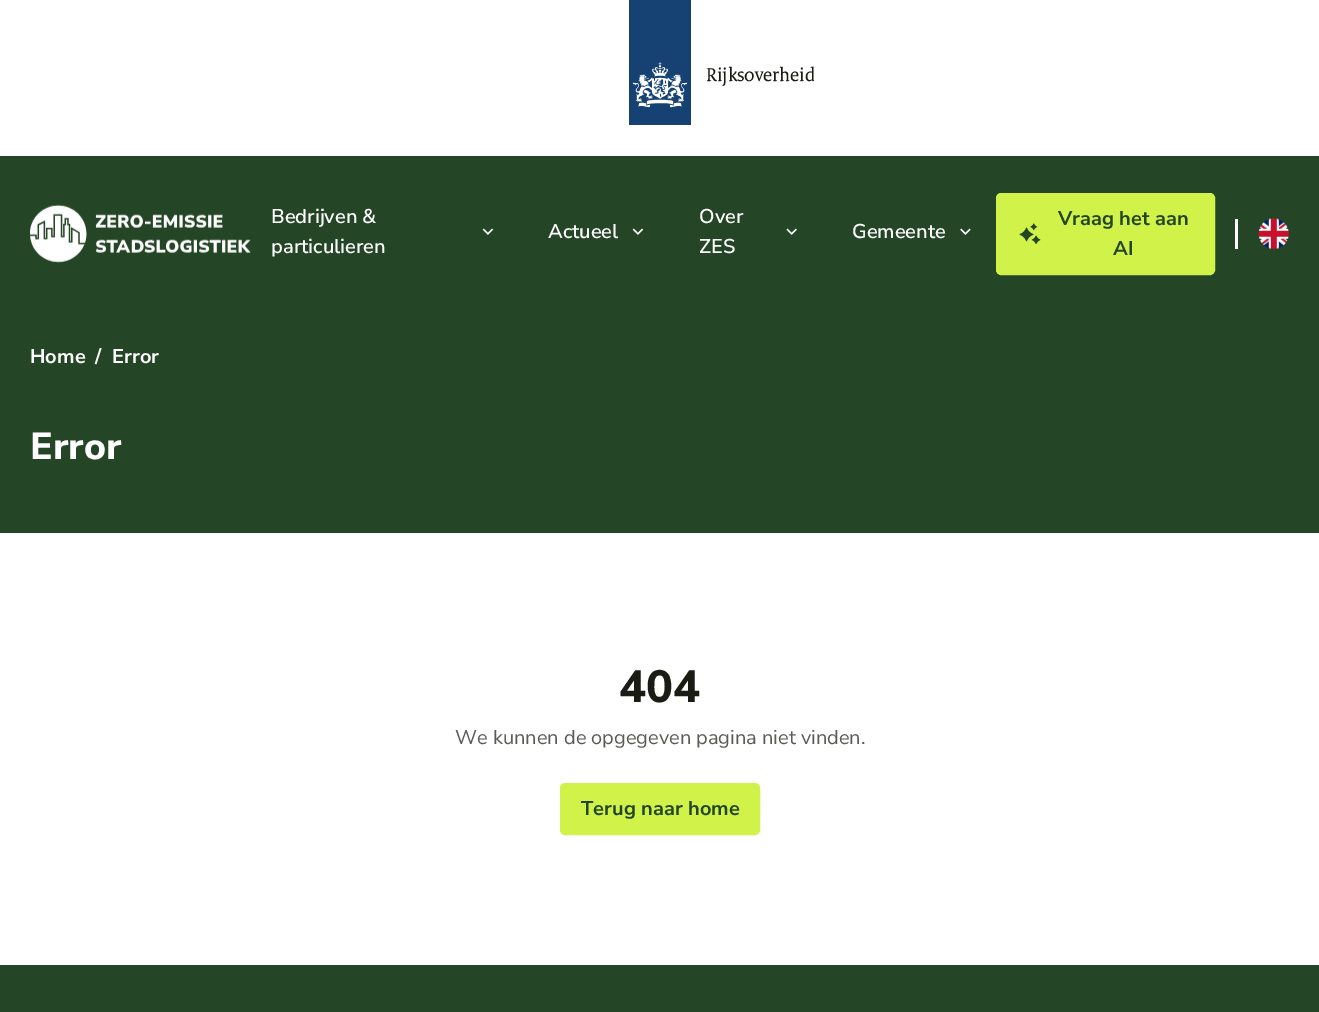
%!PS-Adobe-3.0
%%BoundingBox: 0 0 1319 1012
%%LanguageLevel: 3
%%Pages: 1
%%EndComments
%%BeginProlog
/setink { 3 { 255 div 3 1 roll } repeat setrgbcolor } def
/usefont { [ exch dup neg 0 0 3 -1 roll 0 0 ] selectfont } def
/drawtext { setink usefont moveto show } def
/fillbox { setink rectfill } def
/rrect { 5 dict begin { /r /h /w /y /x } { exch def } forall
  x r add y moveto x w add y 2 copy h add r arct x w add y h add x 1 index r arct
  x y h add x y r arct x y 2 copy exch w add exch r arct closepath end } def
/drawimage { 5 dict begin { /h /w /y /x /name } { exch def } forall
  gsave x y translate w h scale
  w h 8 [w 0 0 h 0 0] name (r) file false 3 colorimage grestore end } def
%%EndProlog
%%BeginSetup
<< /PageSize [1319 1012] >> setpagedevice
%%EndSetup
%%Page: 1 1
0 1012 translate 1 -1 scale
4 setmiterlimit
0 0 1319 1012 255 255 255 fillbox
(assets/img1.rgb) 629 0 62 125 drawimage
(Rijksoverheid) 706 81 /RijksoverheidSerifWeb-Regular 20 26 27 19 drawtext
0 156 1319 377 37 70 38 fillbox
(assets/img2.rgb) 30 204 221 59 drawimage
(Bedrijven &) 271 223 /NunitoSans-SemiBold 20 255 255 255 drawtext
(assets/img3.rgb) 482 228 12 7 drawimage
(particulieren) 271 253 /NunitoSans-SemiBold 20 255 255 255 drawtext
(Actueel) 548 238 /NunitoSans-SemiBold 20 255 255 255 drawtext
(assets/img3.rgb) 632 228 12 7 drawimage
(Over) 699 223 /NunitoSans-SemiBold 20 255 255 255 drawtext
(assets/img4.rgb) 786 228 11 7 drawimage
(ZES) 699 253 /NunitoSans-SemiBold 20 255 255 255 drawtext
(Gemeente) 852 238 /NunitoSans-SemiBold 20 255 255 255 drawtext
(assets/img5.rgb) 960 228 11 7 drawimage
209 243 73 setink
996.5 193.5 218 81 4.5 rrect gsave fill grestore
stroke
(assets/img6.rgb) 1019 223 22 22 drawimage
(Vraag het aan) 1058 225 /NunitoSans-Bold 20 37 70 38 drawtext
(AI) 1113 255 /NunitoSans-Bold 20 37 70 38 drawtext
1235 219 3 30 255 255 255 fillbox
(assets/img7.rgb) 1258 218 31 32 drawimage
(Home) 30 363 /NunitoSans-Bold 20 255 255 255 drawtext
(/) 95 363 /NunitoSans-Bold 20 255 255 255 drawtext
(Error) 112 363 /NunitoSans-Bold 20 255 255 255 drawtext
(Error) 30 459 /NunitoSans-ExtraBold 37.5 255 255 255 drawtext
(404) 619 702 /NunitoSans-ExtraBold 45 26 27 19 drawtext
(We kunnen de opgegeven pagina niet vinden.) 455 744 /NunitoSans-Regular 20 91 92 87 drawtext
209 243 73 setink
560.5 783.5 199 51 4.5 rrect gsave fill grestore
stroke
(Terug naar home) 581 815 /NunitoSans-Bold 20 37 70 38 drawtext
0 965 1319 47 37 70 38 fillbox
showpage
%%EOF
